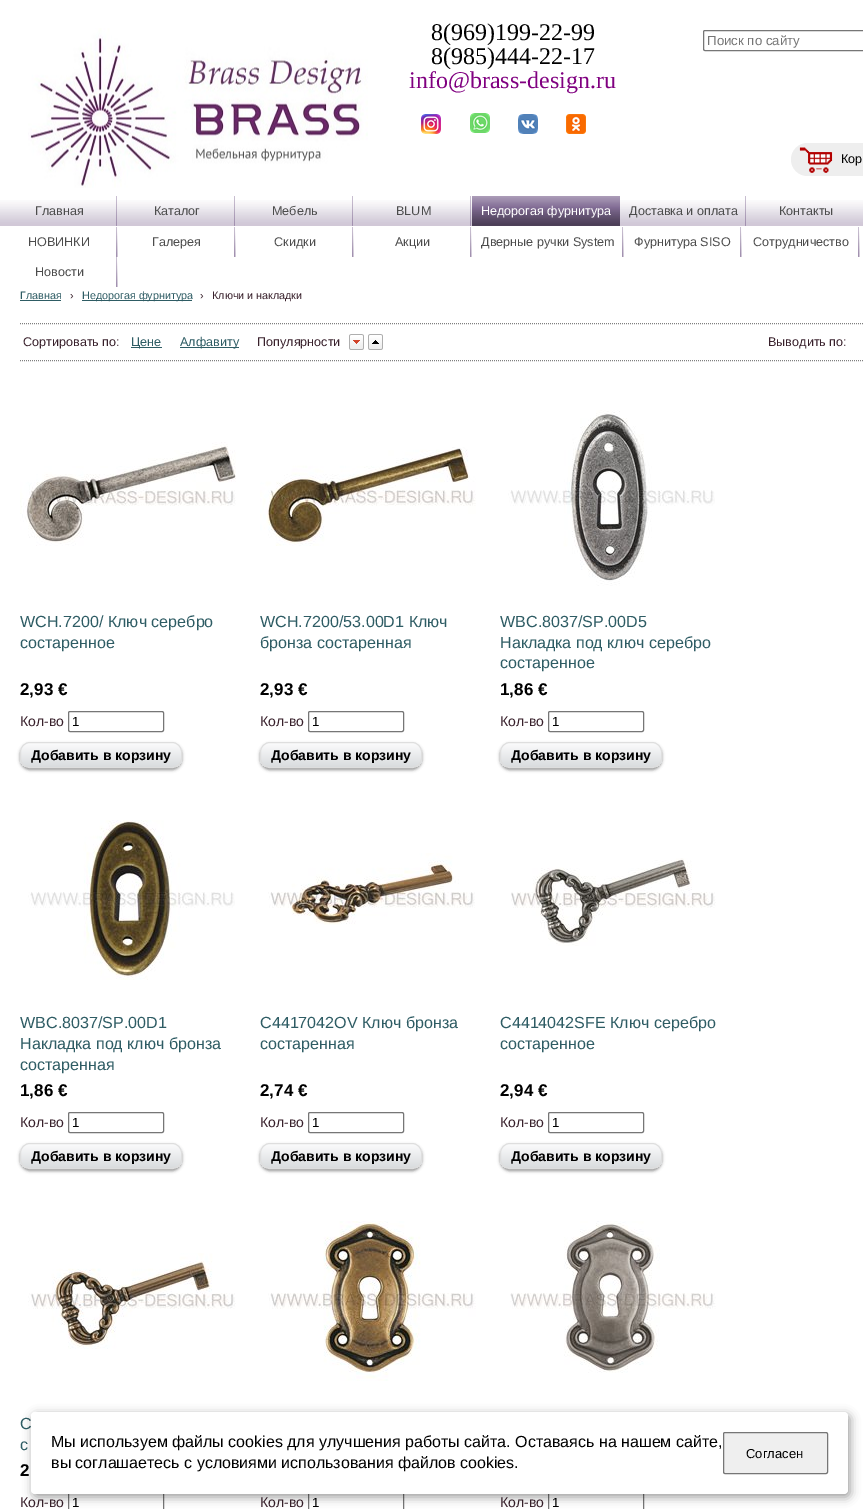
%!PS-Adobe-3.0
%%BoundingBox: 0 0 863 1509
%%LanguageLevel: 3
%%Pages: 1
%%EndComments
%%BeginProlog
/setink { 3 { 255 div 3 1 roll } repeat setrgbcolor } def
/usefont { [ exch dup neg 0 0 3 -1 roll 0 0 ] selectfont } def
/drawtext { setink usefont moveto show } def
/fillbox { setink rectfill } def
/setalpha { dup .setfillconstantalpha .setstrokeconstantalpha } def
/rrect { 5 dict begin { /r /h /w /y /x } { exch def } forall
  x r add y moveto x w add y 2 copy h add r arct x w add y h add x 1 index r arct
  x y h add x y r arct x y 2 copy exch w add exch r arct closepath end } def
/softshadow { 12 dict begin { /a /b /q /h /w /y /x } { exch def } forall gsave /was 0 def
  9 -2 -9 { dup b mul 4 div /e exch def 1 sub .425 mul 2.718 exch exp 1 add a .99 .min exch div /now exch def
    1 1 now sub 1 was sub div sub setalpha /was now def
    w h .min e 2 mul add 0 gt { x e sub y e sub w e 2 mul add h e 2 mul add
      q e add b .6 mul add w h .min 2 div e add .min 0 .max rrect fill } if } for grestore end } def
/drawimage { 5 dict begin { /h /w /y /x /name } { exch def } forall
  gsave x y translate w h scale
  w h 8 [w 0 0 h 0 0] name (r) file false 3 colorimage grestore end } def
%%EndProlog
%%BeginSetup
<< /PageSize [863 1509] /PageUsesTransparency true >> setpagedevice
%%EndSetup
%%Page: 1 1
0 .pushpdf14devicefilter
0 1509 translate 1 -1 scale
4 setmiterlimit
0 0 863 1509 255 255 255 fillbox
(assets/img1.rgb) 28 28 340 160 drawimage
(8\(969\)199-22-99) 431 40 /LiberationSerif-Regular 24 0 0 0 drawtext
(8\(985\)444-22-17) 431 64 /LiberationSerif-Regular 24 0 0 0 drawtext
(info@brass-design.ru) 409 88 /LiberationSerif-Regular 24 128 0 128 drawtext
118 118 118 setink
703.5 30.5 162 20 1.5 rrect stroke
(Поиск по сайту) 707 45 /LiberationSans-Regular 13.25 117 117 117 drawtext
238 238 238 setink
791 143 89 33 16.5 rrect fill
(assets/img2.rgb) 799 147 34 26 drawimage
(Кор) 841 163 /LiberationSans-Regular 12.6 0 0 0 drawtext
(assets/img3.rgb) 421 114 20 20 drawimage
(assets/img4.rgb) 470 113 20 20 drawimage
(assets/img5.rgb) 518 114 20 20 drawimage
(assets/img6.rgb) 566 114 20 20 drawimage
(assets/img7.rgb) 0 200 863 26 drawimage
(assets/img8.rgb) 116 196 1 30 drawimage
(Главная) 35 215 /LiberationSans-Regular 12.6 76 76 76 drawtext
(assets/img8.rgb) 234 196 1 30 drawimage
(Каталог) 154 215 /LiberationSans-Regular 12.6 76 76 76 drawtext
(assets/img8.rgb) 352 196 1 30 drawimage
(Мебель) 272 215 /LiberationSans-Regular 12.6 76 76 76 drawtext
(assets/img8.rgb) 470 196 1 30 drawimage
(BLUM) 396 215 /LiberationSans-Regular 12.6 76 76 76 drawtext
(assets/img9.rgb) 472 196 148 30 drawimage
(Недорогая фурнитура) 481 215 /LiberationSans-Regular 12.6 255 255 255 drawtext
(assets/img8.rgb) 745 196 1 30 drawimage
(Доставка и оплата) 629 215 /LiberationSans-Regular 12.6 76 76 76 drawtext
(Контакты) 779 215 /LiberationSans-Regular 12.6 76 76 76 drawtext
(assets/img10.rgb) 116 227 2 30 drawimage
(НОВИНКИ) 28 246 /LiberationSans-Regular 12.6 76 76 76 drawtext
(assets/img10.rgb) 234 227 2 30 drawimage
(Галерея) 152 246 /LiberationSans-Regular 12.6 76 76 76 drawtext
(assets/img10.rgb) 352 227 2 30 drawimage
(Скидки) 274 246 /LiberationSans-Regular 12.6 76 76 76 drawtext
(assets/img10.rgb) 470 227 2 30 drawimage
(Акции) 395 246 /LiberationSans-Regular 12.6 76 76 76 drawtext
(assets/img10.rgb) 622 227 2 30 drawimage
(Дверные ручки System) 481 246 /LiberationSans-Regular 12.6 76 76 76 drawtext
(assets/img10.rgb) 740 227 2 30 drawimage
(Фурнитура SISO) 634 246 /LiberationSans-Regular 12.6 76 76 76 drawtext
(assets/img10.rgb) 858 227 2 30 drawimage
(Сотрудничество) 753 246 /LiberationSans-Regular 12.6 76 76 76 drawtext
(assets/img10.rgb) 116 257 2 30 drawimage
(Новости) 35 276 /LiberationSans-Regular 12.6 76 76 76 drawtext
(Главная) 20 299 /LiberationSans-Regular 10.75 46 92 100 drawtext
20 300 41 1 46 92 100 fillbox
(›) 70 299 /LiberationSans-Regular 10.75 56 32 43 drawtext
82 300 110 1 46 92 100 fillbox
(Недорогая фурнитура) 82 299 /LiberationSans-Regular 10.75 46 92 100 drawtext
(›) 200 299 /LiberationSans-Regular 10.75 56 32 43 drawtext
(Ключи и накладки) 212 299 /LiberationSans-Regular 10.75 56 32 43 drawtext
127 127 127 setink
[1 1] 0 setdash
20 323.5 moveto 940 323.5 lineto stroke
20 360.5 moveto 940 360.5 lineto stroke
(Сортировать по:) 23 346 /LiberationSans-Regular 12.6 56 32 43 drawtext
131 347 31 1 46 92 100 fillbox
(Цене) 131 346 /LiberationSans-Regular 12.6 46 92 100 drawtext
180 347 59 1 46 92 100 fillbox
(Алфавиту) 180 346 /LiberationSans-Regular 12.6 46 92 100 drawtext
(Популярности) 257 346 /LiberationSans-Regular 12.6 56 32 43 drawtext
(assets/img11.rgb) 349 334 15 16 drawimage
(assets/img12.rgb) 368 334 15 16 drawimage
(Выводить по:) 768 346 /LiberationSans-Regular 12.6 56 32 43 drawtext
(assets/img13.rgb) 20 442 216 104 drawimage
(WCH.7200/ Ключ серебро) 20 627 /LiberationSans-Regular 16.1 46 92 100 drawtext
(состаренное) 20 648 /LiberationSans-Regular 16.1 46 92 100 drawtext
(2,93 €) 20 695 /LiberationSans-Bold 17 0 0 0 drawtext
(Кол-во) 20 726 /LiberationSans-Regular 14 56 32 43 drawtext
118 118 118 setink
[] 0 setdash
68.5 711.5 95 20 1.5 rrect stroke
(1) 72 726 /LiberationSans-Regular 13.25 0 0 0 drawtext
148 148 148 setink
20 744 162 26 10 1.5 1 softshadow
gsave
20 742 162 26 10 rrect clip newpath
gsave 20 743 moveto 182 743 lineto 182 767 lineto 20 767 lineto closepath clip newpath
<< /ShadingType 2 /ColorSpace /DeviceRGB /Coords [101 743 101 767] /Extend [true true] /Function << /FunctionType 2 /Domain [0 1] /C0 [0.984 0.984 0.988] /C1 [0.851 0.863 0.871] /N 1 >> >> shfill grestore
grestore
222 222 222 setink
20.5 742.5 161 25 9.5 rrect stroke
(Добавить в корзину) 31 760 /LiberationSans-Bold 14 0 0 0 drawtext
(assets/img14.rgb) 260 447 216 99 drawimage
(WCH.7200/53.00D1 Ключ) 260 627 /LiberationSans-Regular 16.1 46 92 100 drawtext
(бронза состаренная) 260 648 /LiberationSans-Regular 16.1 46 92 100 drawtext
(2,93 €) 260 695 /LiberationSans-Bold 17 0 0 0 drawtext
(Кол-во) 260 726 /LiberationSans-Regular 14 56 32 43 drawtext
118 118 118 setink
308.5 711.5 95 20 1.5 rrect stroke
(1) 312 726 /LiberationSans-Regular 13.25 0 0 0 drawtext
148 148 148 setink
260 744 162 26 10 1.5 1 softshadow
gsave
260 742 162 26 10 rrect clip newpath
gsave 260 743 moveto 422 743 lineto 422 767 lineto 260 767 lineto closepath clip newpath
<< /ShadingType 2 /ColorSpace /DeviceRGB /Coords [341 743 341 767] /Extend [true true] /Function << /FunctionType 2 /Domain [0 1] /C0 [0.984 0.984 0.988] /C1 [0.851 0.863 0.871] /N 1 >> >> shfill grestore
grestore
222 222 222 setink
260.5 742.5 161 25 9.5 rrect stroke
(Добавить в корзину) 271 760 /LiberationSans-Bold 14 0 0 0 drawtext
(assets/img15.rgb) 508 410 207 176 drawimage
(WBC.8037/SP.00D5) 500 627 /LiberationSans-Regular 16.1 46 92 100 drawtext
(Накладка под ключ серебро) 500 648 /LiberationSans-Regular 16.1 46 92 100 drawtext
(состаренное) 500 668 /LiberationSans-Regular 16.1 46 92 100 drawtext
(1,86 €) 500 695 /LiberationSans-Bold 17 0 0 0 drawtext
(Кол-во) 500 726 /LiberationSans-Regular 14 56 32 43 drawtext
118 118 118 setink
548.5 711.5 95 20 1.5 rrect stroke
(1) 552 726 /LiberationSans-Regular 13.25 0 0 0 drawtext
148 148 148 setink
500 744 162 26 10 1.5 1 softshadow
gsave
500 742 162 26 10 rrect clip newpath
gsave 500 743 moveto 662 743 lineto 662 767 lineto 500 767 lineto closepath clip newpath
<< /ShadingType 2 /ColorSpace /DeviceRGB /Coords [581 743 581 767] /Extend [true true] /Function << /FunctionType 2 /Domain [0 1] /C0 [0.984 0.984 0.988] /C1 [0.851 0.863 0.871] /N 1 >> >> shfill grestore
grestore
222 222 222 setink
500.5 742.5 161 25 9.5 rrect stroke
(Добавить в корзину) 511 760 /LiberationSans-Bold 14 0 0 0 drawtext
(assets/img16.rgb) 28 820 207 160 drawimage
(WBC.8037/SP.00D1) 20 1028 /LiberationSans-Regular 16.1 46 92 100 drawtext
(Накладка под ключ бронза) 20 1049 /LiberationSans-Regular 16.1 46 92 100 drawtext
(состаренная) 20 1070 /LiberationSans-Regular 16.1 46 92 100 drawtext
(1,86 €) 20 1096 /LiberationSans-Bold 17 0 0 0 drawtext
(Кол-во) 20 1127 /LiberationSans-Regular 14 56 32 43 drawtext
118 118 118 setink
68.5 1112.5 95 20 1.5 rrect stroke
(1) 72 1127 /LiberationSans-Regular 13.25 0 0 0 drawtext
148 148 148 setink
20 1145 162 26 10 1.5 1 softshadow
gsave
20 1143 162 26 10 rrect clip newpath
gsave 20 1144 moveto 182 1144 lineto 182 1168 lineto 20 1168 lineto closepath clip newpath
<< /ShadingType 2 /ColorSpace /DeviceRGB /Coords [101 1144 101 1168] /Extend [true true] /Function << /FunctionType 2 /Domain [0 1] /C0 [0.984 0.984 0.988] /C1 [0.851 0.863 0.871] /N 1 >> >> shfill grestore
grestore
222 222 222 setink
20.5 1143.5 161 25 9.5 rrect stroke
(Добавить в корзину) 31 1161 /LiberationSans-Bold 14 0 0 0 drawtext
(assets/img17.rgb) 268 853 207 72 drawimage
(C4417042OV Ключ бронза) 260 1028 /LiberationSans-Regular 16.1 46 92 100 drawtext
(состаренная) 260 1049 /LiberationSans-Regular 16.1 46 92 100 drawtext
(2,74 €) 260 1096 /LiberationSans-Bold 17 0 0 0 drawtext
(Кол-во) 260 1127 /LiberationSans-Regular 14 56 32 43 drawtext
118 118 118 setink
308.5 1112.5 95 20 1.5 rrect stroke
(1) 312 1127 /LiberationSans-Regular 13.25 0 0 0 drawtext
148 148 148 setink
260 1145 162 26 10 1.5 1 softshadow
gsave
260 1143 162 26 10 rrect clip newpath
gsave 260 1144 moveto 422 1144 lineto 422 1168 lineto 260 1168 lineto closepath clip newpath
<< /ShadingType 2 /ColorSpace /DeviceRGB /Coords [341 1144 341 1168] /Extend [true true] /Function << /FunctionType 2 /Domain [0 1] /C0 [0.984 0.984 0.988] /C1 [0.851 0.863 0.871] /N 1 >> >> shfill grestore
grestore
222 222 222 setink
260.5 1143.5 161 25 9.5 rrect stroke
(Добавить в корзину) 271 1161 /LiberationSans-Bold 14 0 0 0 drawtext
(assets/img18.rgb) 511 858 205 88 drawimage
(C4414042SFE Ключ серебро) 500 1028 /LiberationSans-Regular 16.1 46 92 100 drawtext
(состаренное) 500 1049 /LiberationSans-Regular 16.1 46 92 100 drawtext
(2,94 €) 500 1096 /LiberationSans-Bold 17 0 0 0 drawtext
(Кол-во) 500 1127 /LiberationSans-Regular 14 56 32 43 drawtext
118 118 118 setink
548.5 1112.5 95 20 1.5 rrect stroke
(1) 552 1127 /LiberationSans-Regular 13.25 0 0 0 drawtext
148 148 148 setink
500 1145 162 26 10 1.5 1 softshadow
gsave
500 1143 162 26 10 rrect clip newpath
gsave 500 1144 moveto 662 1144 lineto 662 1168 lineto 500 1168 lineto closepath clip newpath
<< /ShadingType 2 /ColorSpace /DeviceRGB /Coords [581 1144 581 1168] /Extend [true true] /Function << /FunctionType 2 /Domain [0 1] /C0 [0.984 0.984 0.988] /C1 [0.851 0.863 0.871] /N 1 >> >> shfill grestore
grestore
222 222 222 setink
500.5 1143.5 161 25 9.5 rrect stroke
(Добавить в корзину) 511 1161 /LiberationSans-Bold 14 0 0 0 drawtext
(assets/img19.rgb) 28 1253 208 96 drawimage
(C) 20 1429 /LiberationSans-Regular 16.1 46 92 100 drawtext
(с) 20 1450 /LiberationSans-Regular 16.1 46 92 100 drawtext
(2) 20 1476 /LiberationSans-Bold 17 0 0 0 drawtext
(Кол-во) 20 1507 /LiberationSans-Regular 14 56 32 43 drawtext
118 118 118 setink
68.5 1492.5 95 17 rectstroke
(1) 72 1507 /LiberationSans-Regular 13.25 0 0 0 drawtext
(assets/img20.rgb) 268 1221 208 160 drawimage
(Кол-во) 260 1507 /LiberationSans-Regular 14 56 32 43 drawtext
118 118 118 setink
308.5 1492.5 95 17 rectstroke
(1) 312 1507 /LiberationSans-Regular 13.25 0 0 0 drawtext
(assets/img21.rgb) 510 1221 206 152 drawimage
(Кол-во) 500 1507 /LiberationSans-Regular 14 56 32 43 drawtext
118 118 118 setink
548.5 1492.5 95 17 rectstroke
(1) 552 1507 /LiberationSans-Regular 13.25 0 0 0 drawtext
33 1415 817 82 4 5 0.4 softshadow
255 255 255 setink
31 1412 817 82 4 rrect fill
(Мы используем файлы cookies для улучшения работы сайта. Оставаясь на нашем сайте,) 51 1447 /LiberationSans-Regular 16 0 0 0 drawtext
(вы соглашаетесь с условиями использования файлов cookies.) 51 1468 /LiberationSans-Regular 16 0 0 0 drawtext
239 239 239 setink
723.5 1432.5 104 41 1.5 rrect gsave fill grestore
118 118 118 setink
stroke
(Согласен) 746 1458 /LiberationSans-Regular 13 0 0 0 drawtext
.poppdf14devicefilter showpage
%%EOF
